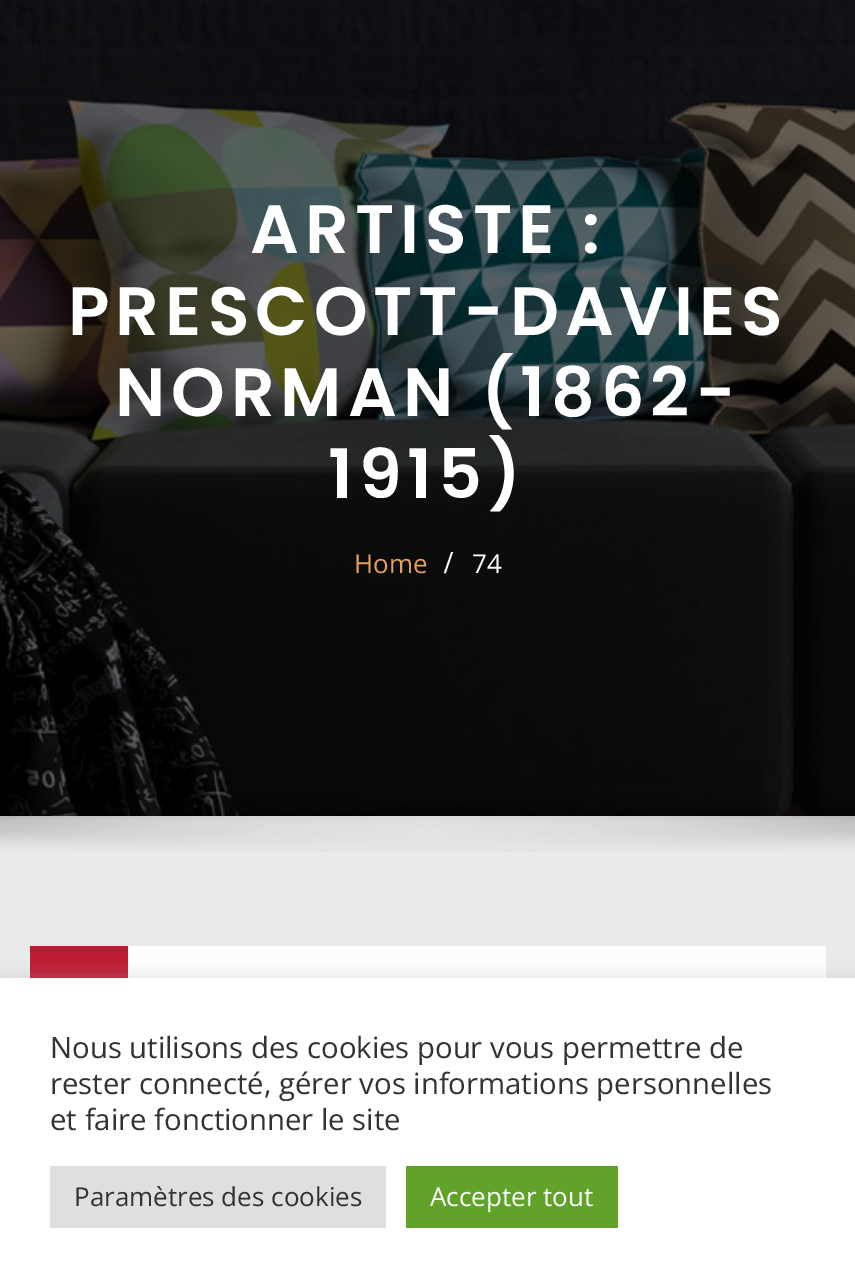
%!PS-Adobe-3.0
%%BoundingBox: 0 0 855 1288
%%LanguageLevel: 3
%%Pages: 1
%%EndComments
%%BeginProlog
/setink { 3 { 255 div 3 1 roll } repeat setrgbcolor } def
/usefont { [ exch dup neg 0 0 3 -1 roll 0 0 ] selectfont } def
/drawtext { setink usefont moveto show } def
/fillbox { setink rectfill } def
/setalpha { dup .setfillconstantalpha .setstrokeconstantalpha } def
/rrect { 5 dict begin { /r /h /w /y /x } { exch def } forall
  x r add y moveto x w add y 2 copy h add r arct x w add y h add x 1 index r arct
  x y h add x y r arct x y 2 copy exch w add exch r arct closepath end } def
/softshadow { 12 dict begin { /a /b /q /h /w /y /x } { exch def } forall gsave /was 0 def
  9 -2 -9 { dup b mul 4 div /e exch def 1 sub .425 mul 2.718 exch exp 1 add a .99 .min exch div /now exch def
    1 1 now sub 1 was sub div sub setalpha /was now def
    w h .min e 2 mul add 0 gt { x e sub y e sub w e 2 mul add h e 2 mul add
      q e add b .6 mul add w h .min 2 div e add .min 0 .max rrect fill } if } for grestore end } def
/drawimage { 5 dict begin { /h /w /y /x /name } { exch def } forall
  gsave x y translate w h scale
  w h 8 [w 0 0 h 0 0] name (r) file false 3 colorimage grestore end } def
%%EndProlog
%%BeginSetup
<< /PageSize [855 1288] /PageUsesTransparency true >> setpagedevice
%%EndSetup
%%Page: 1 1
0 .pushpdf14devicefilter
0 1288 translate 1 -1 scale
4 setmiterlimit
0 0 855 1288 255 255 255 fillbox
(assets/img1.rgb) 0 0 855 816 drawimage
/Poppins-SemiBold 68.25 usefont
250 253 moveto 6 0 (ARTISTE :) ashow
68 335 moveto 6 0 (PRESCOTT-DAVIES) ashow
115 416 moveto 6 0 (NORMAN \(1862-) ashow
328 498 moveto 6 0 (1915\)) ashow
(Home) 354 573 /OpenSans-Regular 26 232 158 91 drawtext
/LiberationSerif-Bold 32 usefont
255 255 255 setink
444 573 moveto 3 0 (/) ashow
(74) 472 573 /OpenSans-Regular 26 255 255 255 drawtext
0 816 855 162 234 234 234 fillbox
(assets/img2.rgb) 0 816 855 36 drawimage
128 946 698 32 255 255 255 fillbox
30 946 98 32 187 27 49 fillbox
172 171 171 setink
0 976 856 310 0 10 0.3 softshadow
0 978 855 310 255 255 255 fillbox
(Nous utilisons des cookies pour vous permettre de) 50 1058 /OpenSans-Regular 29.3 51 51 51 drawtext
(rester connecté, gérer vos informations personnelles) 50 1094 /OpenSans-Regular 29.3 51 51 51 drawtext
(et faire fonctionner le site) 50 1130 /OpenSans-Regular 29.3 51 51 51 drawtext
50 1166 336 62 222 223 224 fillbox
(Paramètres des cookies) 74 1206 /OpenSans-Regular 26 51 51 51 drawtext
406 1166 212 62 97 162 41 fillbox
(Accepter tout) 430 1206 /OpenSans-Regular 26 255 255 255 drawtext
.poppdf14devicefilter showpage
%%EOF
